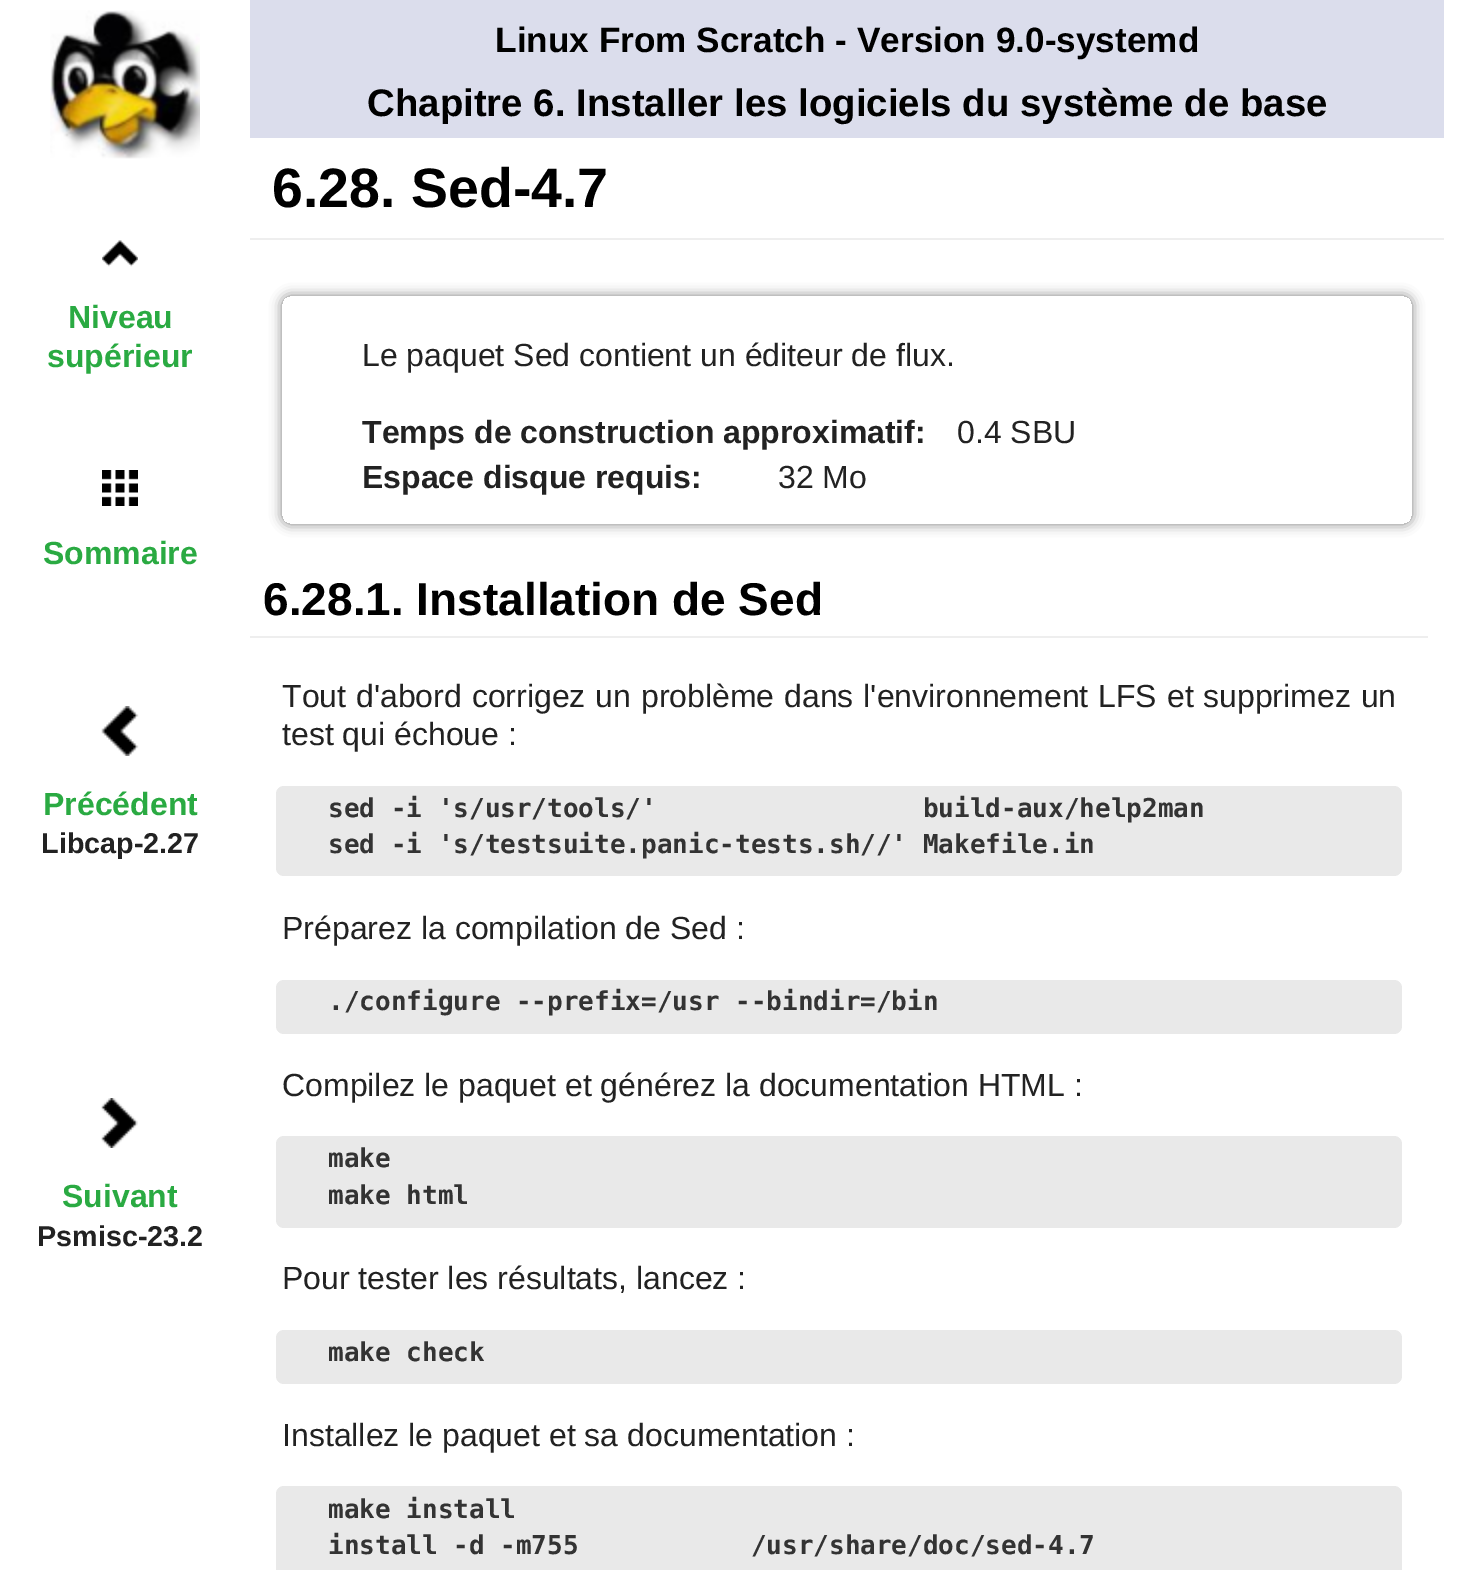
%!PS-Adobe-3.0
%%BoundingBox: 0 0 1475 1570
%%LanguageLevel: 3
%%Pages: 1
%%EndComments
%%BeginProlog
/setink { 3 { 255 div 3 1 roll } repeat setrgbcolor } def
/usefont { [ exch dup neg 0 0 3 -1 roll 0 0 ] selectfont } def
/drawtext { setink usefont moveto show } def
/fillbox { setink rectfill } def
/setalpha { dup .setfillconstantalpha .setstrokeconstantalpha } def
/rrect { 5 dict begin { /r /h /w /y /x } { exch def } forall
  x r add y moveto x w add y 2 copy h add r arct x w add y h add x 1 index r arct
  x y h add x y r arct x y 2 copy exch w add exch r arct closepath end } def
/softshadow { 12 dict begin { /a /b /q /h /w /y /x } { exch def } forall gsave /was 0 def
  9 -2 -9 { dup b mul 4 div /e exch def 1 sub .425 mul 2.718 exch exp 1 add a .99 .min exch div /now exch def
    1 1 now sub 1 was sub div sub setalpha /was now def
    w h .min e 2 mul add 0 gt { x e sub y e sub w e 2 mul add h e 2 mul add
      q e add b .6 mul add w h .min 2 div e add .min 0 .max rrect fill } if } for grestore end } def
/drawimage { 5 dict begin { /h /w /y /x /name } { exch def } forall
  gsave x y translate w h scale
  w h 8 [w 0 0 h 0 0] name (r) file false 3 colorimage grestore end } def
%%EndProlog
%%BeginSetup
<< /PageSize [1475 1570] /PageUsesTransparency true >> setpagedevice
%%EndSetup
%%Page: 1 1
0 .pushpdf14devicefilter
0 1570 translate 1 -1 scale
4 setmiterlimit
0 0 1475 1570 255 255 255 fillbox
250 0 1194 138 219 221 236 fillbox
(Linux From Scratch - Version 9.0-systemd) 495 52 /LiberationSans-Bold 35.2 0 0 0 drawtext
(Chapitre 6. Installer les logiciels du système de base) 367 116 /LiberationSans-Bold 38.4 0 0 0 drawtext
(assets/img1.rgb) 50 10 150 149 drawimage
(assets/img2.rgb) 102 240 36 27 drawimage
(Niveau) 68 328 /LiberationSans-Bold 32 42 170 66 drawtext
(supérieur) 47 367 /LiberationSans-Bold 32 42 170 66 drawtext
(assets/img3.rgb) 102 470 36 36 drawimage
(Sommaire) 43 564 /LiberationSans-Bold 32 42 170 66 drawtext
(assets/img4.rgb) 101 706 38 50 drawimage
(Précédent) 43 815 /LiberationSans-Bold 32 42 170 66 drawtext
(Libcap-2.27) 41 853 /LiberationSans-Bold 28.75 34 34 34 drawtext
(assets/img5.rgb) 101 1098 37 50 drawimage
(Suivant) 62 1207 /LiberationSans-Bold 32 42 170 66 drawtext
(Psmisc-23.2) 37 1246 /LiberationSans-Bold 28.75 34 34 34 drawtext
250 238 1194 2 238 238 238 fillbox
(6.28. Sed-4.7) 272 207 /LiberationSans-Bold 55.5 0 0 0 drawtext
gsave
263 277 moveto 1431 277 lineto 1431 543 lineto 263 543 lineto closepath 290 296 moveto 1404 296 lineto 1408.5 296 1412 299.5 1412 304 curveto 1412 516 lineto 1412 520.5 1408.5 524 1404 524 curveto 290 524 lineto 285.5 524 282 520.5 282 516 curveto 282 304 lineto 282 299.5 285.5 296 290 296 curveto closepath eoclip newpath
282 296 1130 228 8 6 0.5 softshadow
grestore
(Le paquet Sed contient un éditeur de flux.) 362 366 /LiberationSans-Regular 32 34 34 34 drawtext
(Temps de construction approximatif:) 362 443 /LiberationSans-Bold 32 34 34 34 drawtext
(0.4 SBU) 957 443 /LiberationSans-Regular 32 34 34 34 drawtext
(Espace disque requis:) 362 488 /LiberationSans-Bold 32 34 34 34 drawtext
(32 Mo) 778 488 /LiberationSans-Regular 32 34 34 34 drawtext
250 636 1178 2 238 238 238 fillbox
(6.28.1. Installation de Sed) 263 615 /LiberationSans-Bold 46 0 0 0 drawtext
/LiberationSans-Regular 32 usefont
34 34 34 setink
282 707 moveto 1 0 32 (Tout d'abord corrigez un problème dans l'environnement LFS et) widthshow
1203 707 moveto 1 0 32 (supprimez un) widthshow
(test qui échoue :) 282 745 /LiberationSans-Regular 32 34 34 34 drawtext
233 233 233 setink
276 786 1126 90 8 rrect fill
(sed -i 's/usr/tools/'                 build-aux/help2man) 328 817 /DejaVuSansMono-Bold 26 51 51 51 drawtext
(sed -i 's/testsuite.panic-tests.sh//' Makefile.in) 328 853 /DejaVuSansMono-Bold 26 51 51 51 drawtext
(Préparez la compilation de Sed :) 282 939 /LiberationSans-Regular 32 34 34 34 drawtext
233 233 233 setink
276 980 1126 54 8 rrect fill
(./configure --prefix=/usr --bindir=/bin) 328 1010 /DejaVuSansMono-Bold 26 51 51 51 drawtext
(Compilez le paquet et générez la documentation HTML :) 282 1096 /LiberationSans-Regular 32 34 34 34 drawtext
233 233 233 setink
276 1136 1126 92 8 rrect fill
(make) 328 1167 /DejaVuSansMono-Bold 26 51 51 51 drawtext
(make html) 328 1204 /DejaVuSansMono-Bold 26 51 51 51 drawtext
(Pour tester les résultats, lancez :) 282 1289 /LiberationSans-Regular 32 34 34 34 drawtext
233 233 233 setink
276 1330 1126 54 8 rrect fill
(make check) 328 1361 /DejaVuSansMono-Bold 26 51 51 51 drawtext
(Installez le paquet et sa documentation :) 282 1446 /LiberationSans-Regular 32 34 34 34 drawtext
233 233 233 setink
276 1486 1126 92 8 rrect fill
(make install) 328 1518 /DejaVuSansMono-Bold 26 51 51 51 drawtext
(install -d -m755           /usr/share/doc/sed-4.7) 328 1554 /DejaVuSansMono-Bold 26 51 51 51 drawtext
.poppdf14devicefilter showpage
%%EOF
